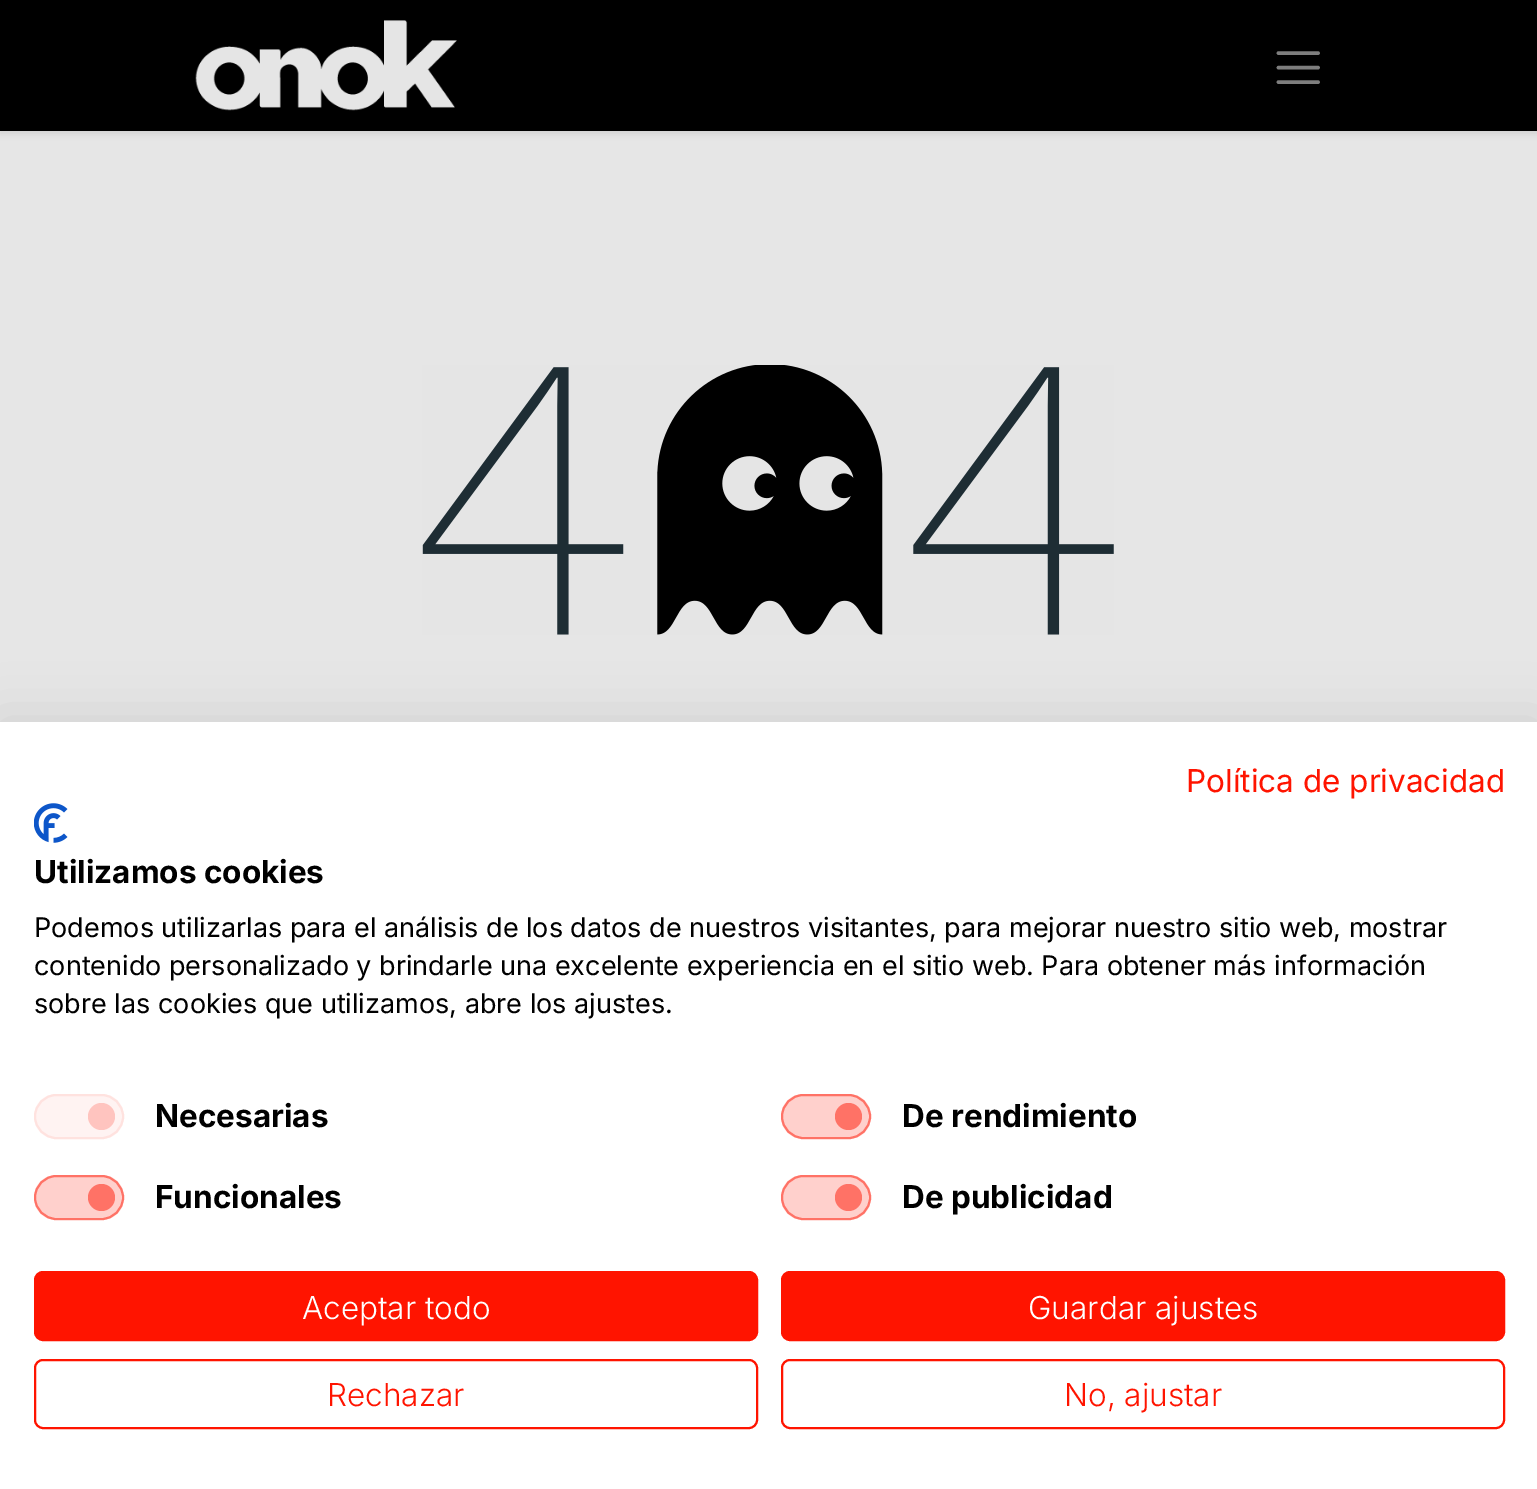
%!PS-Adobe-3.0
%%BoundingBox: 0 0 1537 1489
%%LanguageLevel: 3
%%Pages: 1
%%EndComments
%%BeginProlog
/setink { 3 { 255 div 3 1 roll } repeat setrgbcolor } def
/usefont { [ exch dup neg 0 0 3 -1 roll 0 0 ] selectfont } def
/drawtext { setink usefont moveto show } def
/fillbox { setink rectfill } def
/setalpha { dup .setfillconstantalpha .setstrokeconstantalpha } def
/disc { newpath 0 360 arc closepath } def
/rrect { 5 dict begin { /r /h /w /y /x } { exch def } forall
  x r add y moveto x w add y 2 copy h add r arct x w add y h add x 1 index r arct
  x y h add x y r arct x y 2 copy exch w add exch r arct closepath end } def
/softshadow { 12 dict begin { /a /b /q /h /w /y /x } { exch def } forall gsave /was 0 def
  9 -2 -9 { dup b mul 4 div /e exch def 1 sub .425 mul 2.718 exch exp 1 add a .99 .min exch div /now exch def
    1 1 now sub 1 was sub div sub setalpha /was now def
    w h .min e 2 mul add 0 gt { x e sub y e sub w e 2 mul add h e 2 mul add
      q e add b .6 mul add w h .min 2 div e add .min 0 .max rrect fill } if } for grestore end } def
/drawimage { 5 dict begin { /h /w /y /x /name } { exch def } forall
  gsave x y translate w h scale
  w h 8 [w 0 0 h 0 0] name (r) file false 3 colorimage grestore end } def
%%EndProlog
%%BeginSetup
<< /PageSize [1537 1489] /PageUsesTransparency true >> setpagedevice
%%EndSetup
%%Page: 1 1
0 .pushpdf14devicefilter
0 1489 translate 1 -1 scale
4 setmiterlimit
0 0 1537 1489 230 230 230 fillbox
0 0 0 setink
0 2 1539 131 0 3.5 0.1 softshadow
0 0 1537 131 0 0 0 fillbox
(assets/img1.rgb) 195 20 262 91 drawimage
126 126 126 setink
3.6 setlinewidth
1 setlinecap
1278.5 53 moveto 1318 53 lineto 1278.5 67.5 moveto 1318 67.5 lineto 1278.5 82 moveto 1318 82 lineto stroke
(assets/img2.rgb) 422 365 692 270 drawimage
0 0 0 setink
0 722 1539 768 0 27 0.1 softshadow
0 722 1537 767 255 255 255 fillbox
(Política de privacidad) 1186 792 /Inter-Regular 31.5 255 20 0 drawtext
(assets/img3.rgb) 34 803 34 40 drawimage
(Utilizamos cookies) 34 883 /Inter-Bold 31.5 0 0 0 drawtext
(Podemos utilizarlas para el análisis de los datos de nuestros visitantes, para mejorar nuestro sitio web, mostrar) 34 937 /Inter-Regular 27 0 0 0 drawtext
(contenido personalizado y brindarle una excelente experiencia en el sitio web. Para obtener más información) 34 975 /Inter-Regular 27 0 0 0 drawtext
(sobre las cookies que utilizamos, abre los ajustes.) 34 1013 /Inter-Regular 27 0 0 0 drawtext
255 243 242 setink
34 1094 90 45 22.5 rrect fill
255 196 191 setink
101.5 1116.5 13.5 disc fill
255 226 223 setink
2 setlinewidth
0 setlinecap
35 1095 88 43 21.5 rrect stroke
(Necesarias) 155 1127 /Inter-Bold 31.5 0 0 0 drawtext
255 208 204 setink
781 1094 90 45 22.5 rrect fill
255 114 102 setink
848.5 1116.5 13.5 disc fill
0.5 setalpha
255 20 0 setink
782 1095 88 43 21.5 rrect stroke
1 setalpha
(De rendimiento) 902 1127 /Inter-Bold 31.5 0 0 0 drawtext
255 208 204 setink
34 1175 90 45 22.5 rrect fill
255 114 102 setink
101.5 1197.5 13.5 disc fill
0.5 setalpha
255 20 0 setink
35 1176 88 43 21.5 rrect stroke
1 setalpha
(Funcionales) 155 1208 /Inter-Bold 31.5 0 0 0 drawtext
255 208 204 setink
781 1175 90 45 22.5 rrect fill
255 114 102 setink
848.5 1197.5 13.5 disc fill
0.5 setalpha
255 20 0 setink
782 1176 88 43 21.5 rrect stroke
1 setalpha
(De publicidad) 902 1208 /Inter-Bold 31.5 0 0 0 drawtext
255 20 0 setink
35 1272 722 68 8 rrect gsave fill grestore
stroke
(Aceptar todo) 302 1319 /Inter-Light 31.5 255 255 255 drawtext
255 20 0 setink
782 1272 722 68 8 rrect gsave fill grestore
stroke
(Guardar ajustes) 1028 1319 /Inter-Light 31.5 255 255 255 drawtext
255 20 0 setink
35 1360 722 68 8 rrect stroke
(Rechazar) 327 1406 /Inter-Light 31.5 255 20 0 drawtext
782 1360 722 68 8 rrect stroke
(No, ajustar) 1064 1406 /Inter-Light 31.5 255 20 0 drawtext
.poppdf14devicefilter showpage
%%EOF
